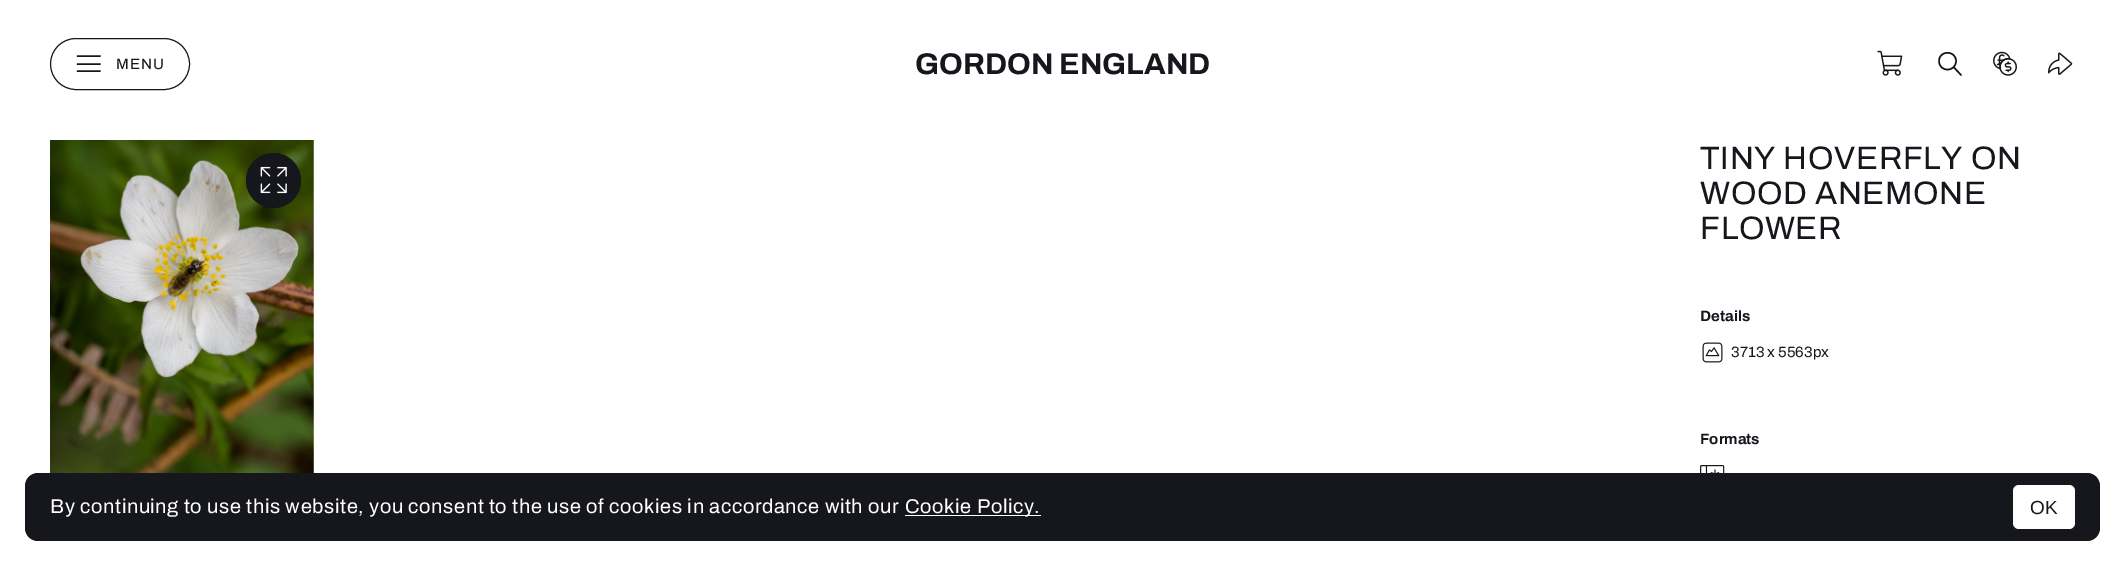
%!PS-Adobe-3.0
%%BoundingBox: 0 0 2124 584
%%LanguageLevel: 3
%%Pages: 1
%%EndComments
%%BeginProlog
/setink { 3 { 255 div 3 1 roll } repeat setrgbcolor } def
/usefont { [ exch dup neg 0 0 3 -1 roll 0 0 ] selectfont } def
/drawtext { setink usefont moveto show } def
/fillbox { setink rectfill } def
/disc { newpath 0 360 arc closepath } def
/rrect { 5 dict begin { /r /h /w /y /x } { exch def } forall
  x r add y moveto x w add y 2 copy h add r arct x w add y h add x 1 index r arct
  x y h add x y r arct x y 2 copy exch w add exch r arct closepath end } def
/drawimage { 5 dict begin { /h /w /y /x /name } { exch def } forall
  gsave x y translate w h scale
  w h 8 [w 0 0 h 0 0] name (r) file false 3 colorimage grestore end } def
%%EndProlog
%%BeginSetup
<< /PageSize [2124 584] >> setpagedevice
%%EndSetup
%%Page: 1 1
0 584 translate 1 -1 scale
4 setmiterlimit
0 0 2124 584 255 255 255 fillbox
22 22 29 setink
50.5 38.5 139 51 25.5 rrect stroke
1.5 setlinewidth
1 setlinecap
1 setlinejoin
77.5 64 moveto 100 64 lineto 77.5 56 moveto 100 56 lineto 77.5 71 moveto 100 71 lineto stroke
/Archivo-Regular 15 usefont
116 69 moveto 1 0 (MENU) ashow
(GORDON ENGLAND) 915 74 /Archivo-Bold 30 22 22 29 drawtext
(assets/img1.rgb) 1877 50 26 26 drawimage
1961 75 moveto 1954 67.5 lineto 1956 61 moveto 1956 72.5 1939 72.5 1939 61 curveto 1939 50 1956 50 1956 61 curveto closepath stroke
(assets/img2.rgb) 1993 51 24 25 drawimage
(assets/img3.rgb) 2048 52 25 23 drawimage
(assets/img4.rgb) 50 140 264 333 drawimage
273.5 180.5 27.5 disc fill
(assets/img5.rgb) 260 166 27 28 drawimage
/Archivo-Regular 32.5 usefont
1700 169 moveto 0.62 0 (TINY HOVERFLY ON) ashow
1700 204 moveto 0.62 0 (WOOD ANEMONE) ashow
1700 239 moveto 0.62 0 (FLOWER) ashow
(Details) 1700 321 /Archivo-Bold 15 22 22 29 drawtext
(assets/img6.rgb) 1702 342 21 21 drawimage
(3713 x 5563px) 1731 357 /Archivo-Regular 15 22 22 29 drawtext
(Formats) 1700 444 /Archivo-Bold 15 22 22 29 drawtext
(assets/img7.rgb) 1700 465 25 8 drawimage
25 473 2075 68 13 rrect fill
/Archivo-Regular 20 usefont
255 255 255 setink
50 513 moveto 0.62 0 (By continuing to use this website, you consent to the use of cookies in accordance with our) ashow
905 515 136 1 255 255 255 fillbox
905 513 moveto 0.62 0 (Cookie Policy.) ashow
2013 485 62 44 6 rrect fill
(OK) 2030 514 /LiberationSans-Regular 19 22 22 29 drawtext
showpage
%%EOF
